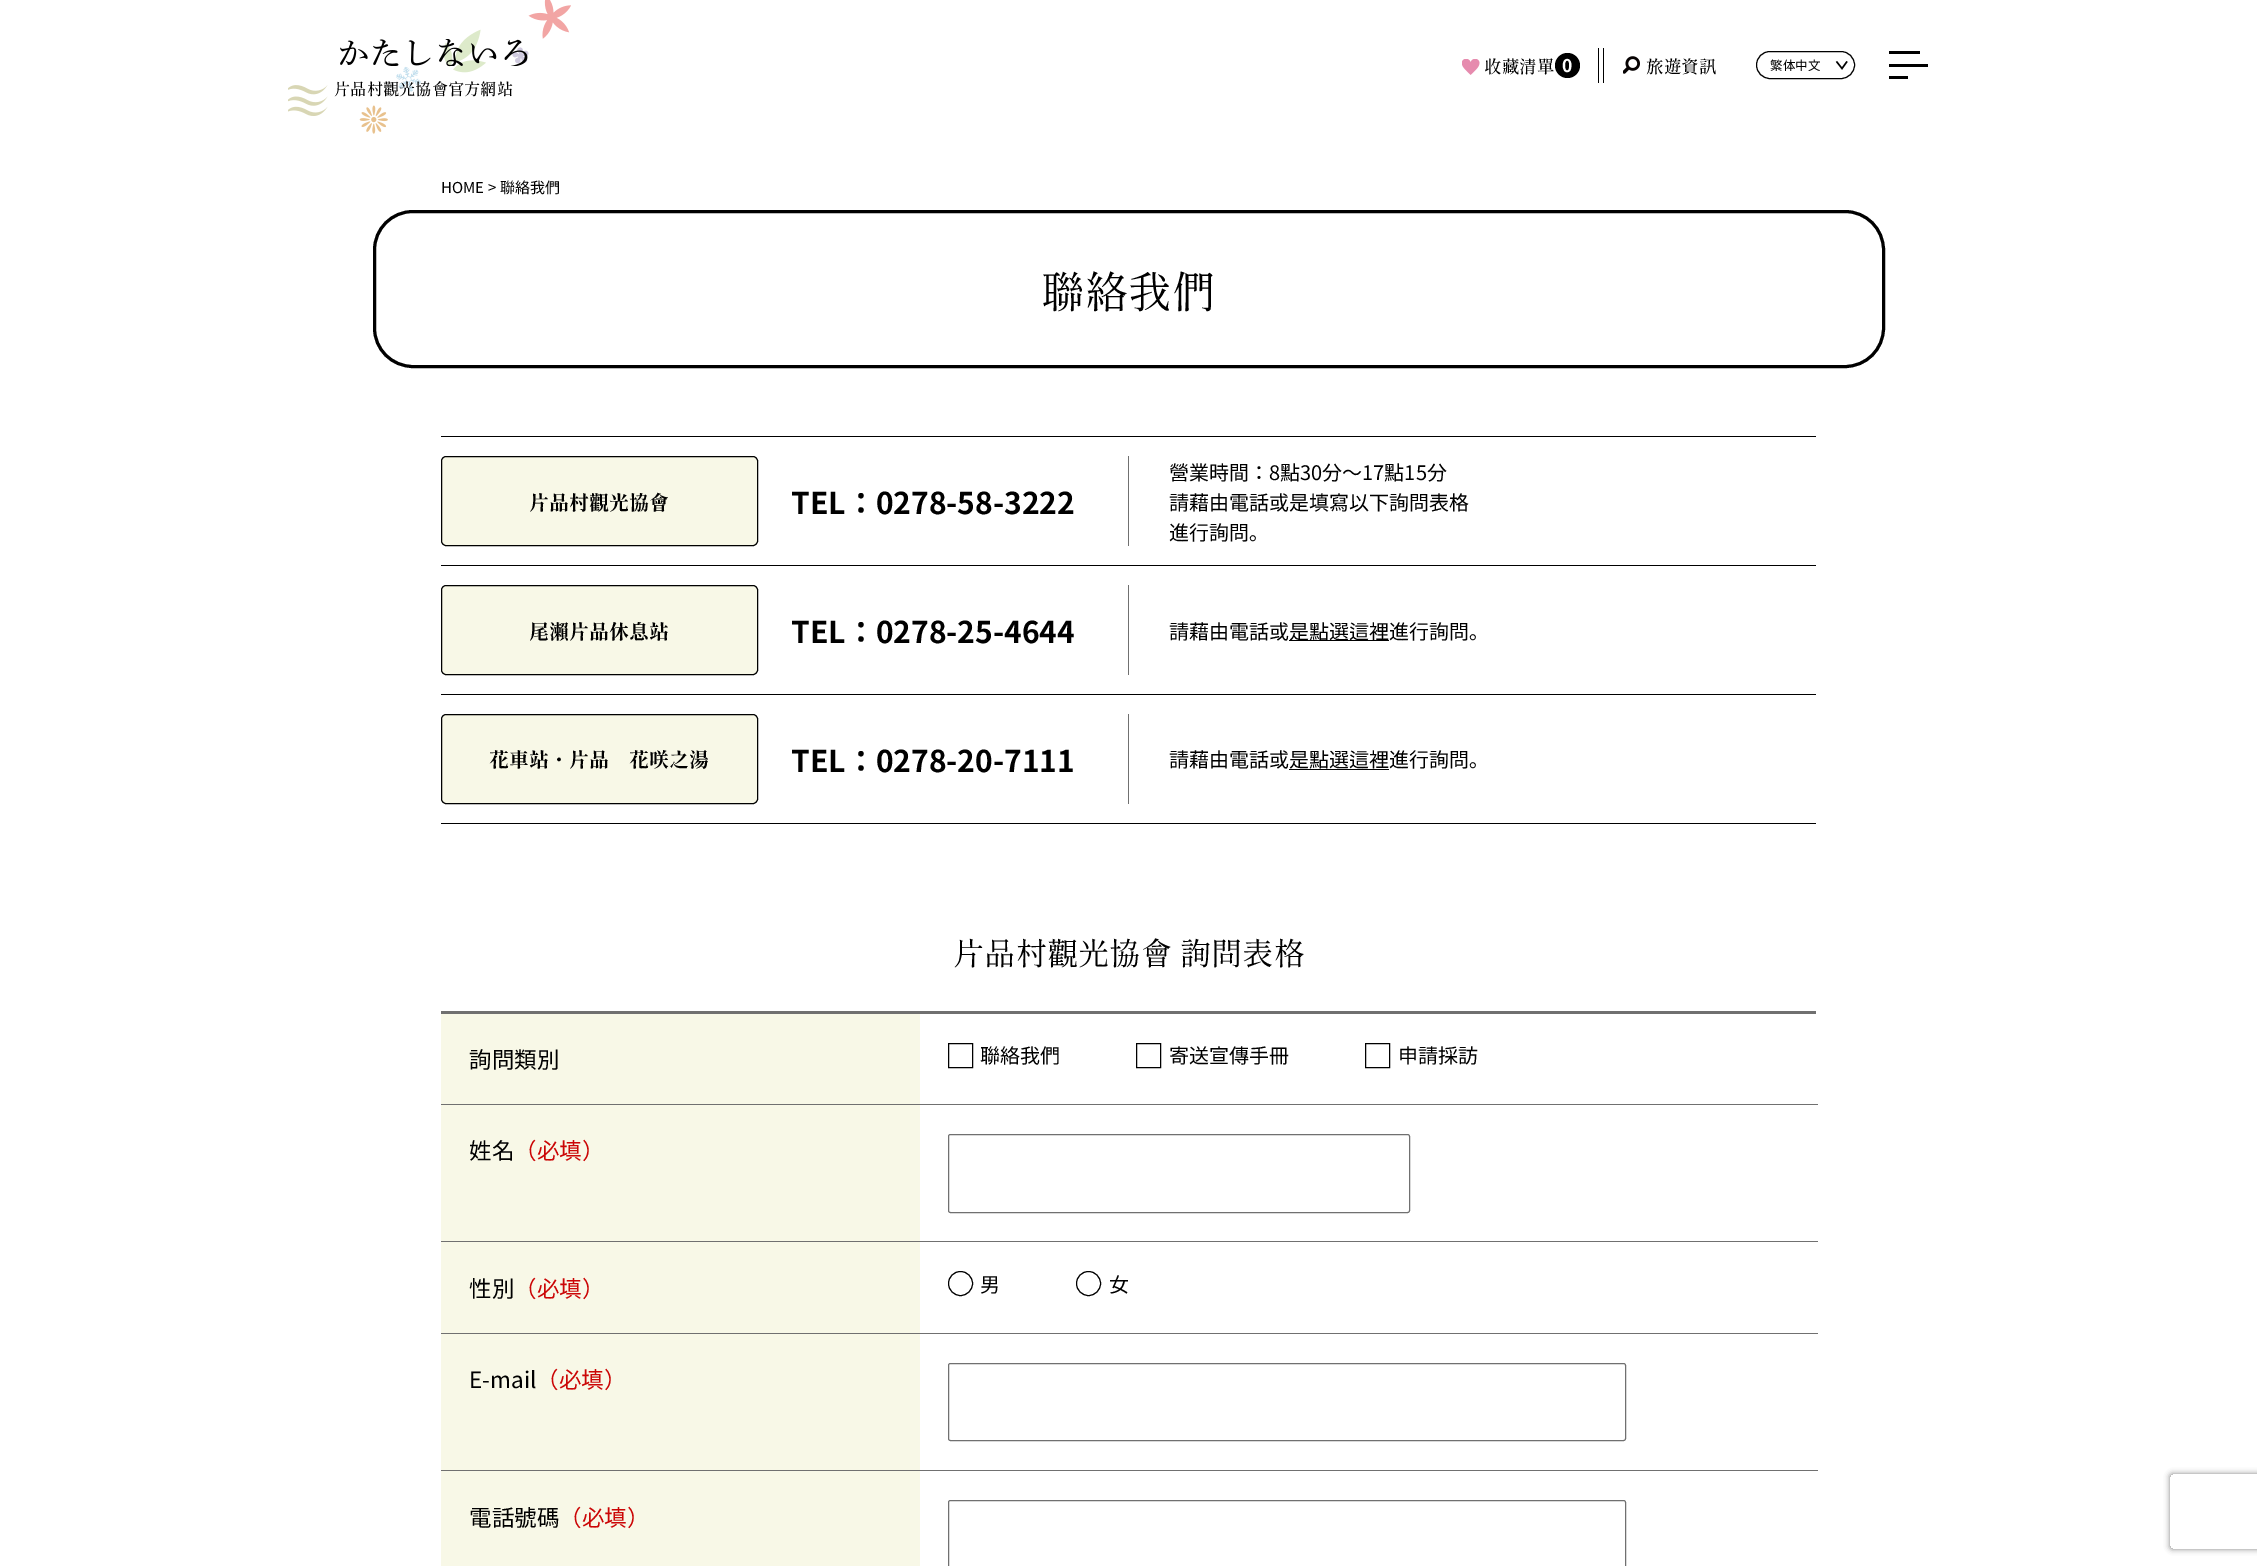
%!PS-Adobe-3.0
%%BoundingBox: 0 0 2257 1566
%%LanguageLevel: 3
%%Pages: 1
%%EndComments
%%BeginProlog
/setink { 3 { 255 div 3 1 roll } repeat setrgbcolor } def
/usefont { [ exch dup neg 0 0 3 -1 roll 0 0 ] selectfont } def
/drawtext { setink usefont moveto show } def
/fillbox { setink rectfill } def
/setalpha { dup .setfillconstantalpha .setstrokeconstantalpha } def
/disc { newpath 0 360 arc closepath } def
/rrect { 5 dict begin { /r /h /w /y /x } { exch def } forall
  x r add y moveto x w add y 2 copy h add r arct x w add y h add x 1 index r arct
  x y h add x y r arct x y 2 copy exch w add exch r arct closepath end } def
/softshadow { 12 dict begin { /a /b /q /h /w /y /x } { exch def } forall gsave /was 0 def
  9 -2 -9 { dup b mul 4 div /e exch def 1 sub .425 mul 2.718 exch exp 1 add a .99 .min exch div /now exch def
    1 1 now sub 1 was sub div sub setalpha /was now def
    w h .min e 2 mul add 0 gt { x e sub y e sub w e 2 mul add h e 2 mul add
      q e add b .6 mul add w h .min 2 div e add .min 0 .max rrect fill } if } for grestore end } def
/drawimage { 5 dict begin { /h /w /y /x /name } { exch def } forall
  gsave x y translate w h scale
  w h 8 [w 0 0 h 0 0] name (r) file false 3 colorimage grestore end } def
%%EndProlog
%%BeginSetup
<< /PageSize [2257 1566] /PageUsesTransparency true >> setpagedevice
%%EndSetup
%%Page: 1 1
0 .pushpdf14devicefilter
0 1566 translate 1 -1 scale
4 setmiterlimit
0 0 2257 1566 255 255 255 fillbox
1598 48 1 35 0 0 0 fillbox
(assets/img1.rgb) 1462 59 18 16 drawimage
(收藏清單) 1484 73 /ShipporiMincho-Medium 17.5 0 0 0 drawtext
1567.5 65.5 12.5 disc fill
(0) 1562 72 /NotoSansJP-Bold 17.5 255 255 255 drawtext
1603 48 1 35 0 0 0 fillbox
(assets/img2.rgb) 1623 56 17 18 drawimage
(旅遊資訊) 1646 73 /ShipporiMincho-Medium 17.5 0 0 0 drawtext
1756.5 51.5 98 27 13.5 rrect stroke
(繁体中文) 1770 70 /NotoSansJP-Regular 12.5 0 0 0 drawtext
1.4 setlinewidth
1847 61.5 moveto 1842 68.5 lineto 1836.5 61.5 lineto stroke
1889 51 31 3 0 0 0 fillbox
1889 64 39 3 0 0 0 fillbox
1889 76 19 3 0 0 0 fillbox
(assets/img3.rgb) 288 0 283 134 drawimage
(assets/img4.rgb) 340 39 188 27 drawimage
(片品村觀光協會官方網站) 334 95 /ShipporiMincho-Medium 16.25 0 0 0 drawtext
(HOME) 441 193 /NotoSansJP-Regular 15 0 0 0 drawtext
(>) 488 193 /NotoSansJP-Regular 15 0 0 0 drawtext
(聯絡我們) 500 193 /NotoSansJP-Regular 15 0 0 0 drawtext
3 setlinewidth
374.5 211.5 1509 155 38.5 rrect stroke
(聯絡我們) 1041 308 /ShipporiMincho-Regular 43.5 0 0 0 drawtext
441 436 1375 1 0 0 0 fillbox
1128 456 1 90 112 112 112 fillbox
248 248 231 setink
441.5 456.5 316 89 4.5 rrect gsave fill grestore
0 0 0 setink
1 setlinewidth
stroke
(片品村觀光協會) 529 510 /ShipporiMincho-Bold 20 0 0 0 drawtext
(TEL：0278-58-3222) 791 514 /NotoSansJP-Bold 30 0 0 0 drawtext
(營業時間：8點30分～17點15分) 1169 480 /NotoSansJP-Regular 20 0 0 0 drawtext
(請藉由電話或是填寫以下詢問表格) 1169 510 /NotoSansJP-Regular 20 0 0 0 drawtext
(進行詢問。) 1169 540 /NotoSansJP-Regular 20 0 0 0 drawtext
441 565 1375 1 0 0 0 fillbox
1128 585 1 90 112 112 112 fillbox
248 248 231 setink
441.5 585.5 316 89 4.5 rrect gsave fill grestore
0 0 0 setink
stroke
(尾瀨片品休息站) 529 639 /ShipporiMincho-Bold 20 0 0 0 drawtext
(TEL：0278-25-4644) 791 643 /NotoSansJP-Bold 30 0 0 0 drawtext
(請藉由電話或) 1169 639 /NotoSansJP-Regular 20 0 0 0 drawtext
1289 640 100 1 0 0 0 fillbox
(是點選這裡進行詢問。) 1289 639 /NotoSansJP-Regular 20 0 0 0 drawtext
441 694 1375 1 0 0 0 fillbox
441 823 1375 1 0 0 0 fillbox
1128 714 1 90 112 112 112 fillbox
248 248 231 setink
441.5 714.5 316 89 4.5 rrect gsave fill grestore
0 0 0 setink
stroke
(花車站・片品　花咲之湯) 489 767 /ShipporiMincho-Bold 20 0 0 0 drawtext
(TEL：0278-20-7111) 791 772 /NotoSansJP-Bold 30 0 0 0 drawtext
(請藉由電話或是點選這裡進行詢問。) 1169 767 /NotoSansJP-Regular 20 0 0 0 drawtext
1289 769 100 1 0 0 0 fillbox
(片品村觀光協會 詢問表格) 953 965 /ShipporiMincho-Regular 31.25 0 0 0 drawtext
441 1011 1375 3 112 112 112 fillbox
441 1104 1377 1 112 112 112 fillbox
441 1014 479 90 248 248 231 fillbox
(詢問類別) 469 1068 /NotoSansJP-Regular 22.5 0 0 0 drawtext
948.5 1043.5 24 24 rectstroke
(聯絡我們) 980 1063 /NotoSansJP-Regular 20 0 0 0 drawtext
1136.5 1043.5 24 24 rectstroke
(寄送宣傳手冊) 1169 1063 /NotoSansJP-Regular 20 0 0 0 drawtext
1365.5 1043.5 24 24 rectstroke
(申請採訪) 1398 1063 /NotoSansJP-Regular 20 0 0 0 drawtext
441 1241 1377 1 112 112 112 fillbox
441 1105 479 136 248 248 231 fillbox
(姓名) 469 1159 /NotoSansJP-Regular 22.5 0 0 0 drawtext
(（必填）) 514 1159 /NotoSansJP-Regular 22.5 203 6 6 drawtext
112 112 112 setink
948.5 1134.5 461 78 2 rrect stroke
441 1333 1377 1 112 112 112 fillbox
441 1242 479 91 248 248 231 fillbox
(性別) 469 1297 /NotoSansJP-Regular 22.5 0 0 0 drawtext
(（必填）) 514 1297 /NotoSansJP-Regular 22.5 203 6 6 drawtext
0 0 0 setink
960.5 1283.5 12 disc stroke
(男) 980 1292 /NotoSansJP-Regular 20 0 0 0 drawtext
1088.5 1283.5 12 disc stroke
(女) 1109 1292 /NotoSansJP-Regular 20 0 0 0 drawtext
441 1470 1377 1 112 112 112 fillbox
441 1334 479 136 248 248 231 fillbox
(E-mail) 469 1388 /NotoSansJP-Regular 22.5 0 0 0 drawtext
(（必填）) 536 1388 /NotoSansJP-Regular 22.5 203 6 6 drawtext
112 112 112 setink
948.5 1363.5 677 77 2 rrect stroke
441 1471 479 95 248 248 231 fillbox
(電話號碼) 469 1526 /NotoSansJP-Regular 22.5 0 0 0 drawtext
(（必填）) 559 1526 /NotoSansJP-Regular 22.5 203 6 6 drawtext
112 112 112 setink
948.5 1500.5 677 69 2 rrect stroke
gsave
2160 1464 moveto 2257 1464 lineto 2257 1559 lineto 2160 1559 lineto closepath 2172.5 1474 moveto 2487.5 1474 lineto 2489 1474 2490 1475 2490 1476.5 curveto 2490 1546.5 lineto 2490 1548 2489 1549 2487.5 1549 curveto 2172.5 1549 lineto 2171 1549 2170 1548 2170 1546.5 curveto 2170 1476.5 lineto 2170 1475 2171 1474 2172.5 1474 curveto closepath eoclip newpath
128 128 128 setink
2170 1474 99 75 2.5 3 1 softshadow
grestore
.poppdf14devicefilter showpage
%%EOF
